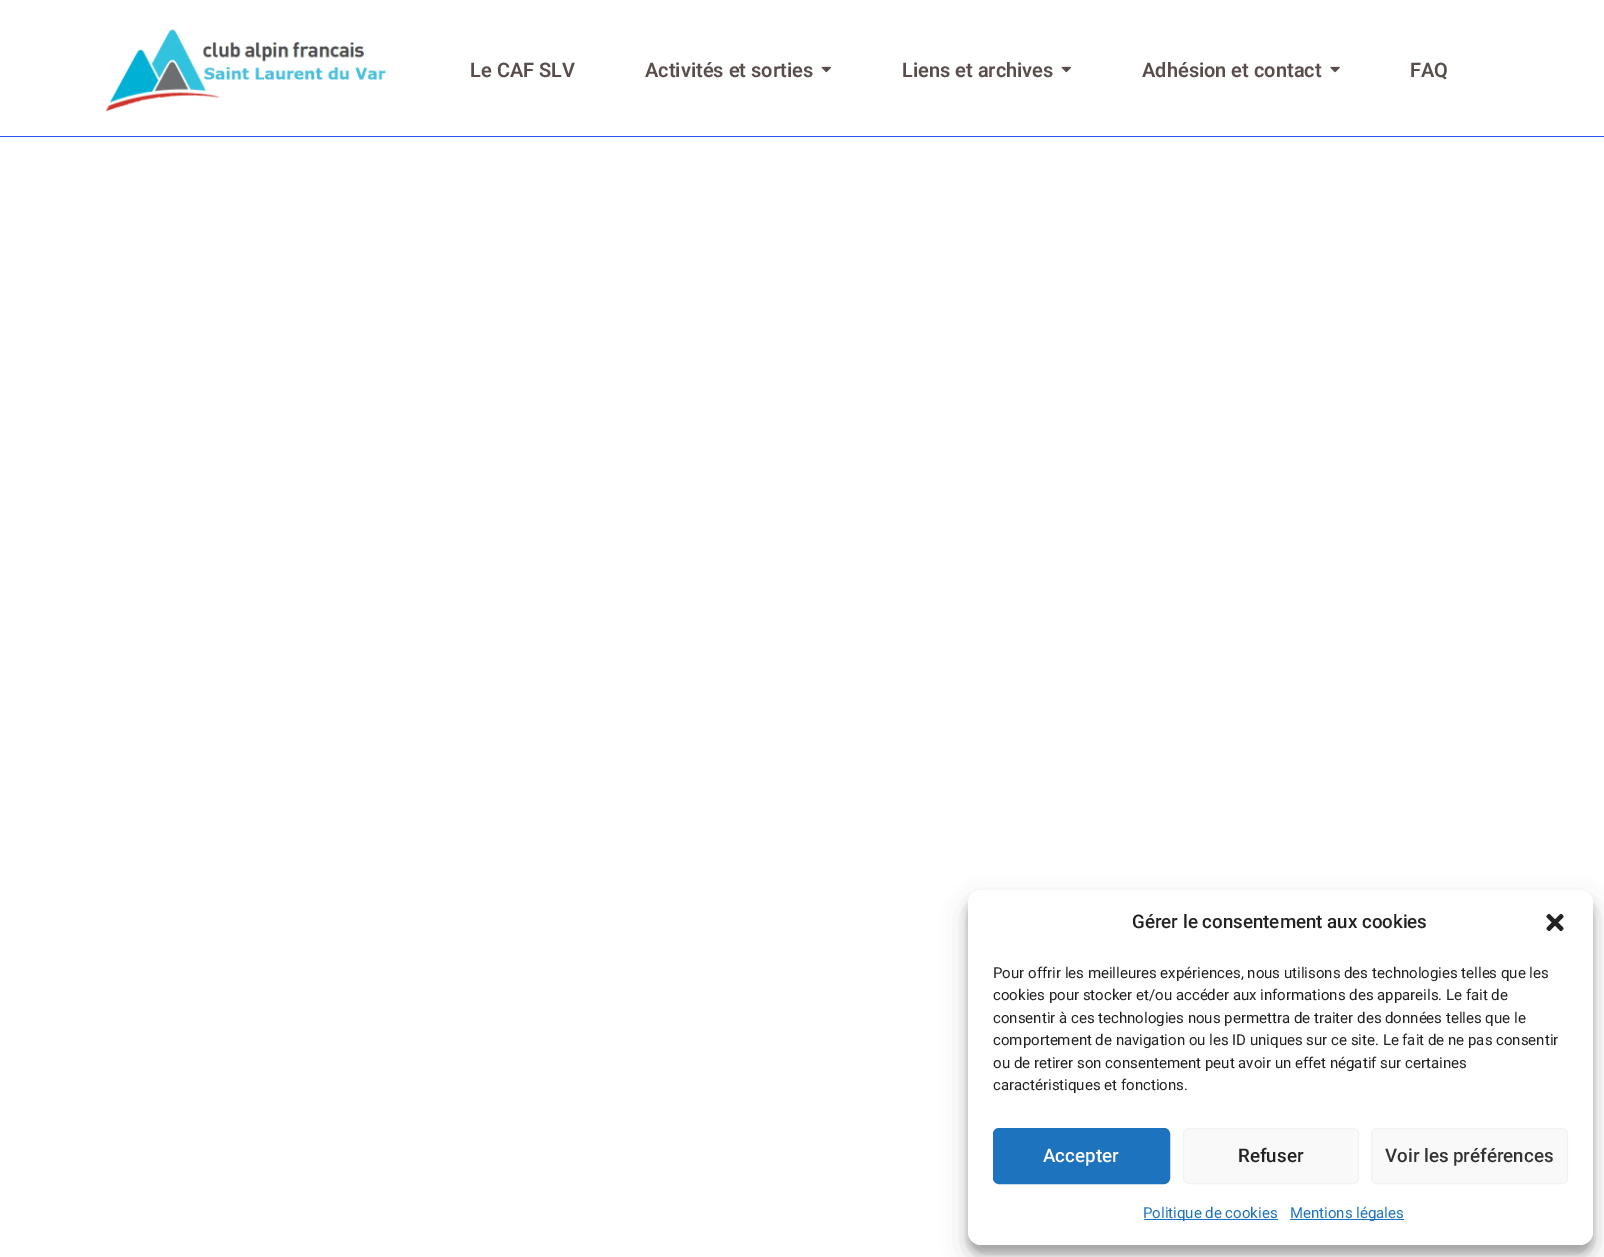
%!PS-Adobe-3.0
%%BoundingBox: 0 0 1604 1257
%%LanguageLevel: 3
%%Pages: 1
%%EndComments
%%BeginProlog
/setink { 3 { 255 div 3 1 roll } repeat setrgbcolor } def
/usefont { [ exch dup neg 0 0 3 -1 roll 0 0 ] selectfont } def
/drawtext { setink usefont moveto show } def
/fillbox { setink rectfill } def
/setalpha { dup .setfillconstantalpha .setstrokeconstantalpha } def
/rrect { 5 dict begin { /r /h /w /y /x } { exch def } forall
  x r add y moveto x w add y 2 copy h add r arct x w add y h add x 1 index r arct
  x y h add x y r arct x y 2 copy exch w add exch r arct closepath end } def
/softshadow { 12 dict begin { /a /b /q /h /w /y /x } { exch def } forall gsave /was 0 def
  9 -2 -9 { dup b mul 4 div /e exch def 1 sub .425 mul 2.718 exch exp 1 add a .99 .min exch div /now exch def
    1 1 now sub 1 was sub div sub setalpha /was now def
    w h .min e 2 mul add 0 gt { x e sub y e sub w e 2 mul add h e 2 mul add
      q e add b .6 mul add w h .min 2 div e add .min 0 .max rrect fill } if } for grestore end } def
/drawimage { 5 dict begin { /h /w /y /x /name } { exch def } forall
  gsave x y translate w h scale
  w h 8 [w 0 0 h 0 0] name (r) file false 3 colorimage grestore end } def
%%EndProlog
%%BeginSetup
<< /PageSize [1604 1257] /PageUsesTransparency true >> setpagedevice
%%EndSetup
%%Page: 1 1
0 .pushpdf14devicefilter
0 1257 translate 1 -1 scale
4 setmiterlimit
0 0 1604 1257 255 255 255 fillbox
0 136 1604 1 45 82 243 fillbox
(assets/img1.rgb) 105 29 281 83 drawimage
(Le CAF SLV) 470 77 /Roboto-SemiBold 20 88 77 75 drawtext
(Activités et sorties) 645 77 /Roboto-SemiBold 20 88 77 75 drawtext
(assets/img2.rgb) 821 66 10 7 drawimage
(Liens et archives) 902 77 /Roboto-SemiBold 20 88 77 75 drawtext
(assets/img2.rgb) 1061 66 10 7 drawimage
(Adhésion et contact) 1142 77 /Roboto-SemiBold 20 88 77 75 drawtext
(assets/img3.rgb) 1330 66 10 7 drawimage
(FAQ) 1410 77 /Roboto-SemiBold 20 88 77 75 drawtext
0 0 0 setink
968 898 625 355 13 4 0.23 softshadow
968 903 625 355 13 12.5 0.19 softshadow
255 255 255 setink
968 890 625 355 13 rrect fill
(Gérer le consentement aux cookies) 1132 928 /Roboto-Medium 18.75 34 34 34 drawtext
(assets/img4.rgb) 1546 913 18 18 drawimage
(Pour offrir les meilleures expériences, nous utilisons des technologies telles que les) 993 978 /Roboto-Regular 15 34 34 34 drawtext
(cookies pour stocker et/ou accéder aux informations des appareils. Le fait de) 993 1000 /Roboto-Regular 15 34 34 34 drawtext
(consentir à ces technologies nous permettra de traiter des données telles que le) 993 1023 /Roboto-Regular 15 34 34 34 drawtext
(comportement de navigation ou les ID uniques sur ce site. Le fait de ne pas consentir) 993 1045 /Roboto-Regular 15 34 34 34 drawtext
(ou de retirer son consentement peut avoir un effet négatif sur certaines) 993 1068 /Roboto-Regular 15 34 34 34 drawtext
(caractéristiques et fonctions.) 993 1090 /Roboto-Regular 15 34 34 34 drawtext
30 115 190 setink
993.5 1128.5 176 55 5.5 rrect gsave fill grestore
stroke
(Accepter) 1043 1162 /Roboto-Medium 18.75 255 255 255 drawtext
249 249 249 setink
1183.5 1128.5 175 55 5.5 rrect gsave fill grestore
242 242 242 setink
stroke
(Refuser) 1238 1162 /Roboto-Medium 18.75 34 34 34 drawtext
249 249 249 setink
1371.5 1128.5 196 55 5.5 rrect gsave fill grestore
242 242 242 setink
stroke
(Voir les préférences) 1385 1162 /Roboto-Medium 18.75 51 51 51 drawtext
1144 1219 134 1 30 115 190 fillbox
(Politique de cookies) 1143 1218 /Roboto-Regular 15 30 115 190 drawtext
1290 1219 114 1 30 115 190 fillbox
(Mentions légales) 1290 1218 /Roboto-Regular 15 30 115 190 drawtext
.poppdf14devicefilter showpage
%%EOF
